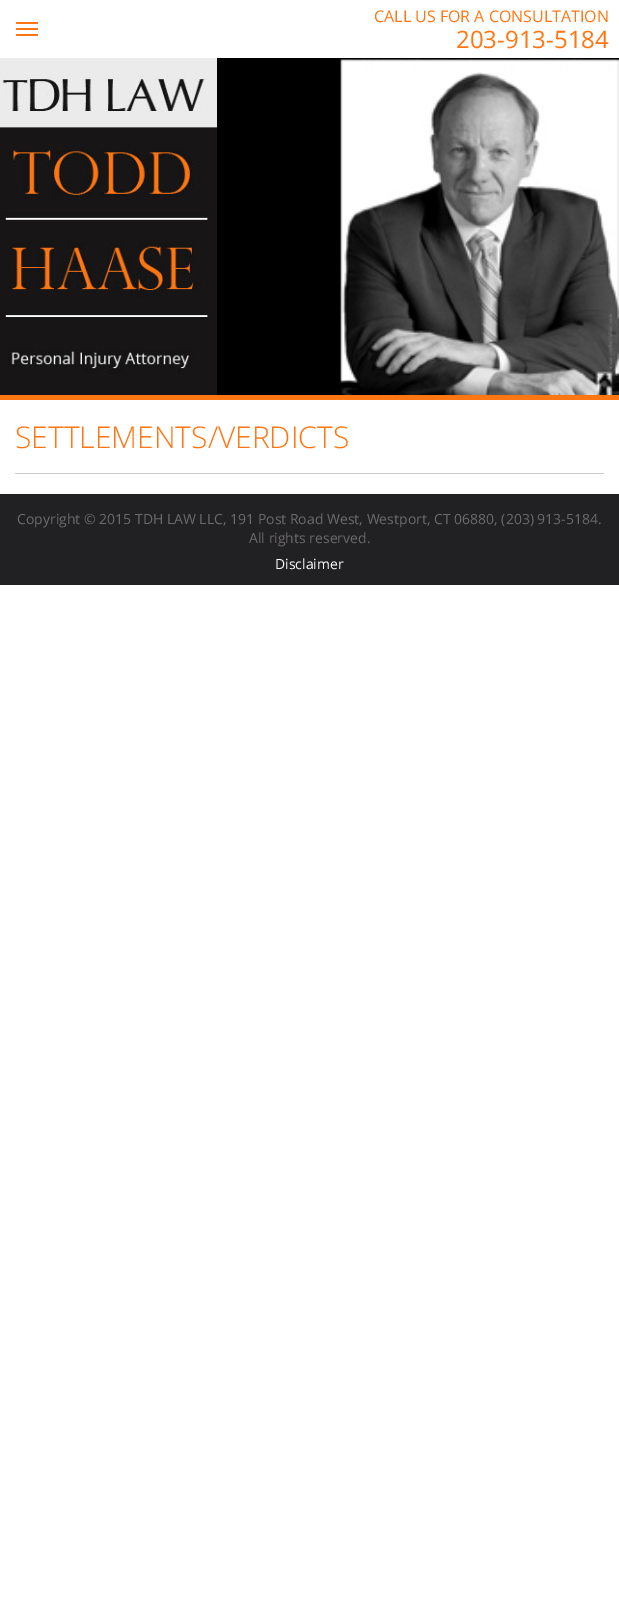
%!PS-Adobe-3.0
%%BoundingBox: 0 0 619 1608
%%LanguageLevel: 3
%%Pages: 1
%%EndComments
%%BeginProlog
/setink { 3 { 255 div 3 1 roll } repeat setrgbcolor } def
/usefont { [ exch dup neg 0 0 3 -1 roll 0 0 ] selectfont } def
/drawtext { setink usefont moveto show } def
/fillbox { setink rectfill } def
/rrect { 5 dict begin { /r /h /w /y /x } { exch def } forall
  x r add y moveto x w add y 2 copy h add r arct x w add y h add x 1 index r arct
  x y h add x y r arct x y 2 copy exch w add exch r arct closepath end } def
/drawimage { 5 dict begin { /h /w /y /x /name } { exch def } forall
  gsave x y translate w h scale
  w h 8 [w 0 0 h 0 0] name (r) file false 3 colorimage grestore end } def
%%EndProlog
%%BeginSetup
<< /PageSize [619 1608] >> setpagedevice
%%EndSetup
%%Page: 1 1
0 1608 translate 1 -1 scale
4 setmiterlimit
0 0 619 1608 255 255 255 fillbox
255 118 18 setink
16 22 22 2 1 rrect fill
16 28 22 2 1 rrect fill
16 34 22 2 1 rrect fill
(CALL US FOR A CONSULTATION) 374 22 /OpenSans-Regular 16 255 118 18 drawtext
(203-913-5184) 456 48 /OpenSans-Regular 24 255 118 18 drawtext
217 58 123 337 0 0 0 fillbox
(assets/img1.rgb) 340 58 279 337 drawimage
0 395 619 5 255 118 18 fillbox
(assets/img2.rgb) 0 58 217 337 drawimage
15 473 589 1 204 204 204 fillbox
(SETTLEMENTS/VERDICTS) 15 448 /OpenSans-Light 30 255 118 18 drawtext
0 494 619 91 33 33 35 fillbox
(Copyright © 2015 TDH LAW LLC, 191 Post Road West, Westport, CT 06880, \(203\) 913-5184.) 17 524 /OpenSans-Regular 14 108 106 106 drawtext
(All rights reserved.) 249 543 /OpenSans-Regular 14 108 106 106 drawtext
(Disclaimer) 275 569 /OpenSans-Regular 14 255 255 255 drawtext
showpage
%%EOF
